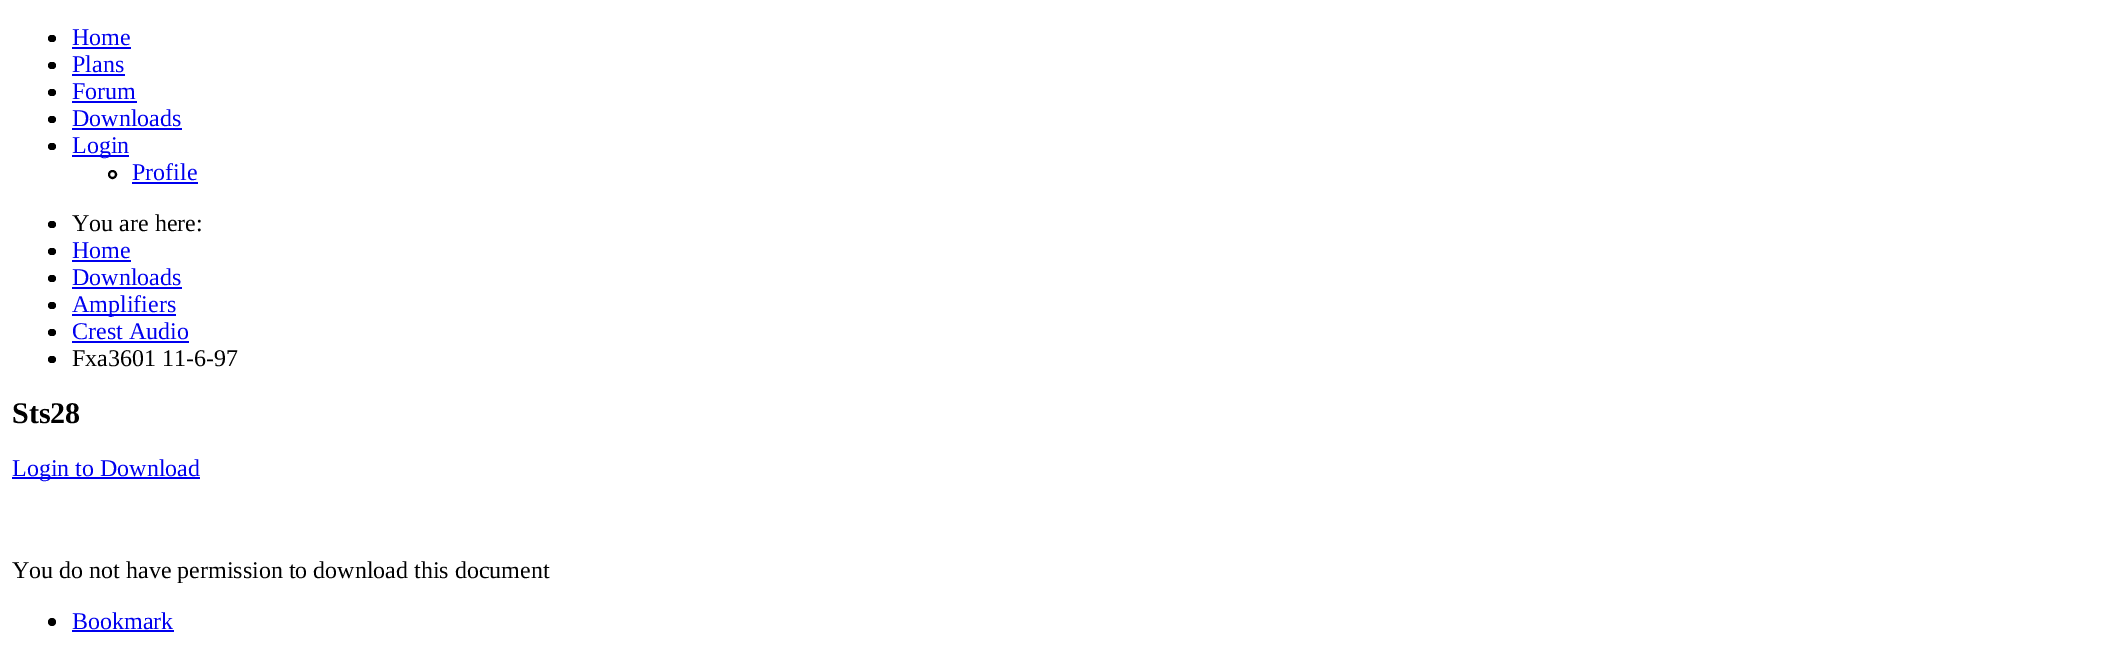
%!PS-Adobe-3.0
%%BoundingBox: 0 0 2108 664
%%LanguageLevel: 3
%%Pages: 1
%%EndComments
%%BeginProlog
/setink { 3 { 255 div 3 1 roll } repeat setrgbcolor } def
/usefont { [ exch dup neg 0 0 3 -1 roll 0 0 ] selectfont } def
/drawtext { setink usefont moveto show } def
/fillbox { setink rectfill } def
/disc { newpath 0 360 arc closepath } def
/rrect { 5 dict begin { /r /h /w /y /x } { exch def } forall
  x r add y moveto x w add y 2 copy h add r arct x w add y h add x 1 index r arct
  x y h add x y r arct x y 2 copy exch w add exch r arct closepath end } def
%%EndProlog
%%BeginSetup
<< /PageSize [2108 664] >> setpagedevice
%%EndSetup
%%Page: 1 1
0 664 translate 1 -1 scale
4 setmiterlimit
0 0 2108 664 255 255 255 fillbox
0 0 0 setink
48 35 8 7 3.5 rrect fill
(Home) 72 45 /LiberationSerif-Regular 24 0 0 238 drawtext
72 47 59 2 0 0 238 fillbox
0 0 0 setink
48 62 8 7 3.5 rrect fill
(Plans) 72 72 /LiberationSerif-Regular 24 0 0 238 drawtext
72 74 53 2 0 0 238 fillbox
0 0 0 setink
48 89 8 7 3.5 rrect fill
(Forum) 72 99 /LiberationSerif-Regular 24 0 0 238 drawtext
72 101 65 2 0 0 238 fillbox
0 0 0 setink
48 116 8 7 3.5 rrect fill
(Downloads) 72 126 /LiberationSerif-Regular 24 0 0 238 drawtext
72 128 110 2 0 0 238 fillbox
0 0 0 setink
48 143 8 7 3.5 rrect fill
72 155 57 2 0 0 238 fillbox
(Login) 72 153 /LiberationSerif-Regular 24 0 0 238 drawtext
0 0 0 setink
2 setlinewidth
112.5 174.5 3.5 disc stroke
(Profile) 132 180 /LiberationSerif-Regular 24 0 0 238 drawtext
132 182 66 2 0 0 238 fillbox
0 0 0 setink
48 221 8 7 3.5 rrect fill
(You are here:) 72 231 /LiberationSerif-Regular 24 0 0 0 drawtext
48 248 8 7 3.5 rrect fill
(Home) 72 258 /LiberationSerif-Regular 24 0 0 238 drawtext
72 260 59 2 0 0 238 fillbox
0 0 0 setink
48 275 8 7 3.5 rrect fill
(Downloads) 72 285 /LiberationSerif-Regular 24 0 0 238 drawtext
72 287 110 2 0 0 238 fillbox
0 0 0 setink
48 302 8 7 3.5 rrect fill
72 314 104 2 0 0 238 fillbox
(Amplifiers) 72 312 /LiberationSerif-Regular 24 0 0 238 drawtext
0 0 0 setink
48 329 8 7 3.5 rrect fill
(Crest Audio) 72 339 /LiberationSerif-Regular 24 0 0 238 drawtext
72 341 117 2 0 0 238 fillbox
0 0 0 setink
48 356 8 7 3.5 rrect fill
(Fxa3601 11-6-97) 72 366 /LiberationSerif-Regular 24 0 0 0 drawtext
(Sts28) 12 423 /LiberationSerif-Bold 30 0 0 0 drawtext
12 477 188 2 0 0 238 fillbox
(Login to Download) 12 476 /LiberationSerif-Regular 24 0 0 238 drawtext
(You do not have permission to download this document) 12 578 /LiberationSerif-Regular 24 0 0 0 drawtext
52 622 4 disc fill
(Bookmark) 72 629 /LiberationSerif-Regular 24 0 0 238 drawtext
72 630 102 2 0 0 238 fillbox
showpage
%%EOF
